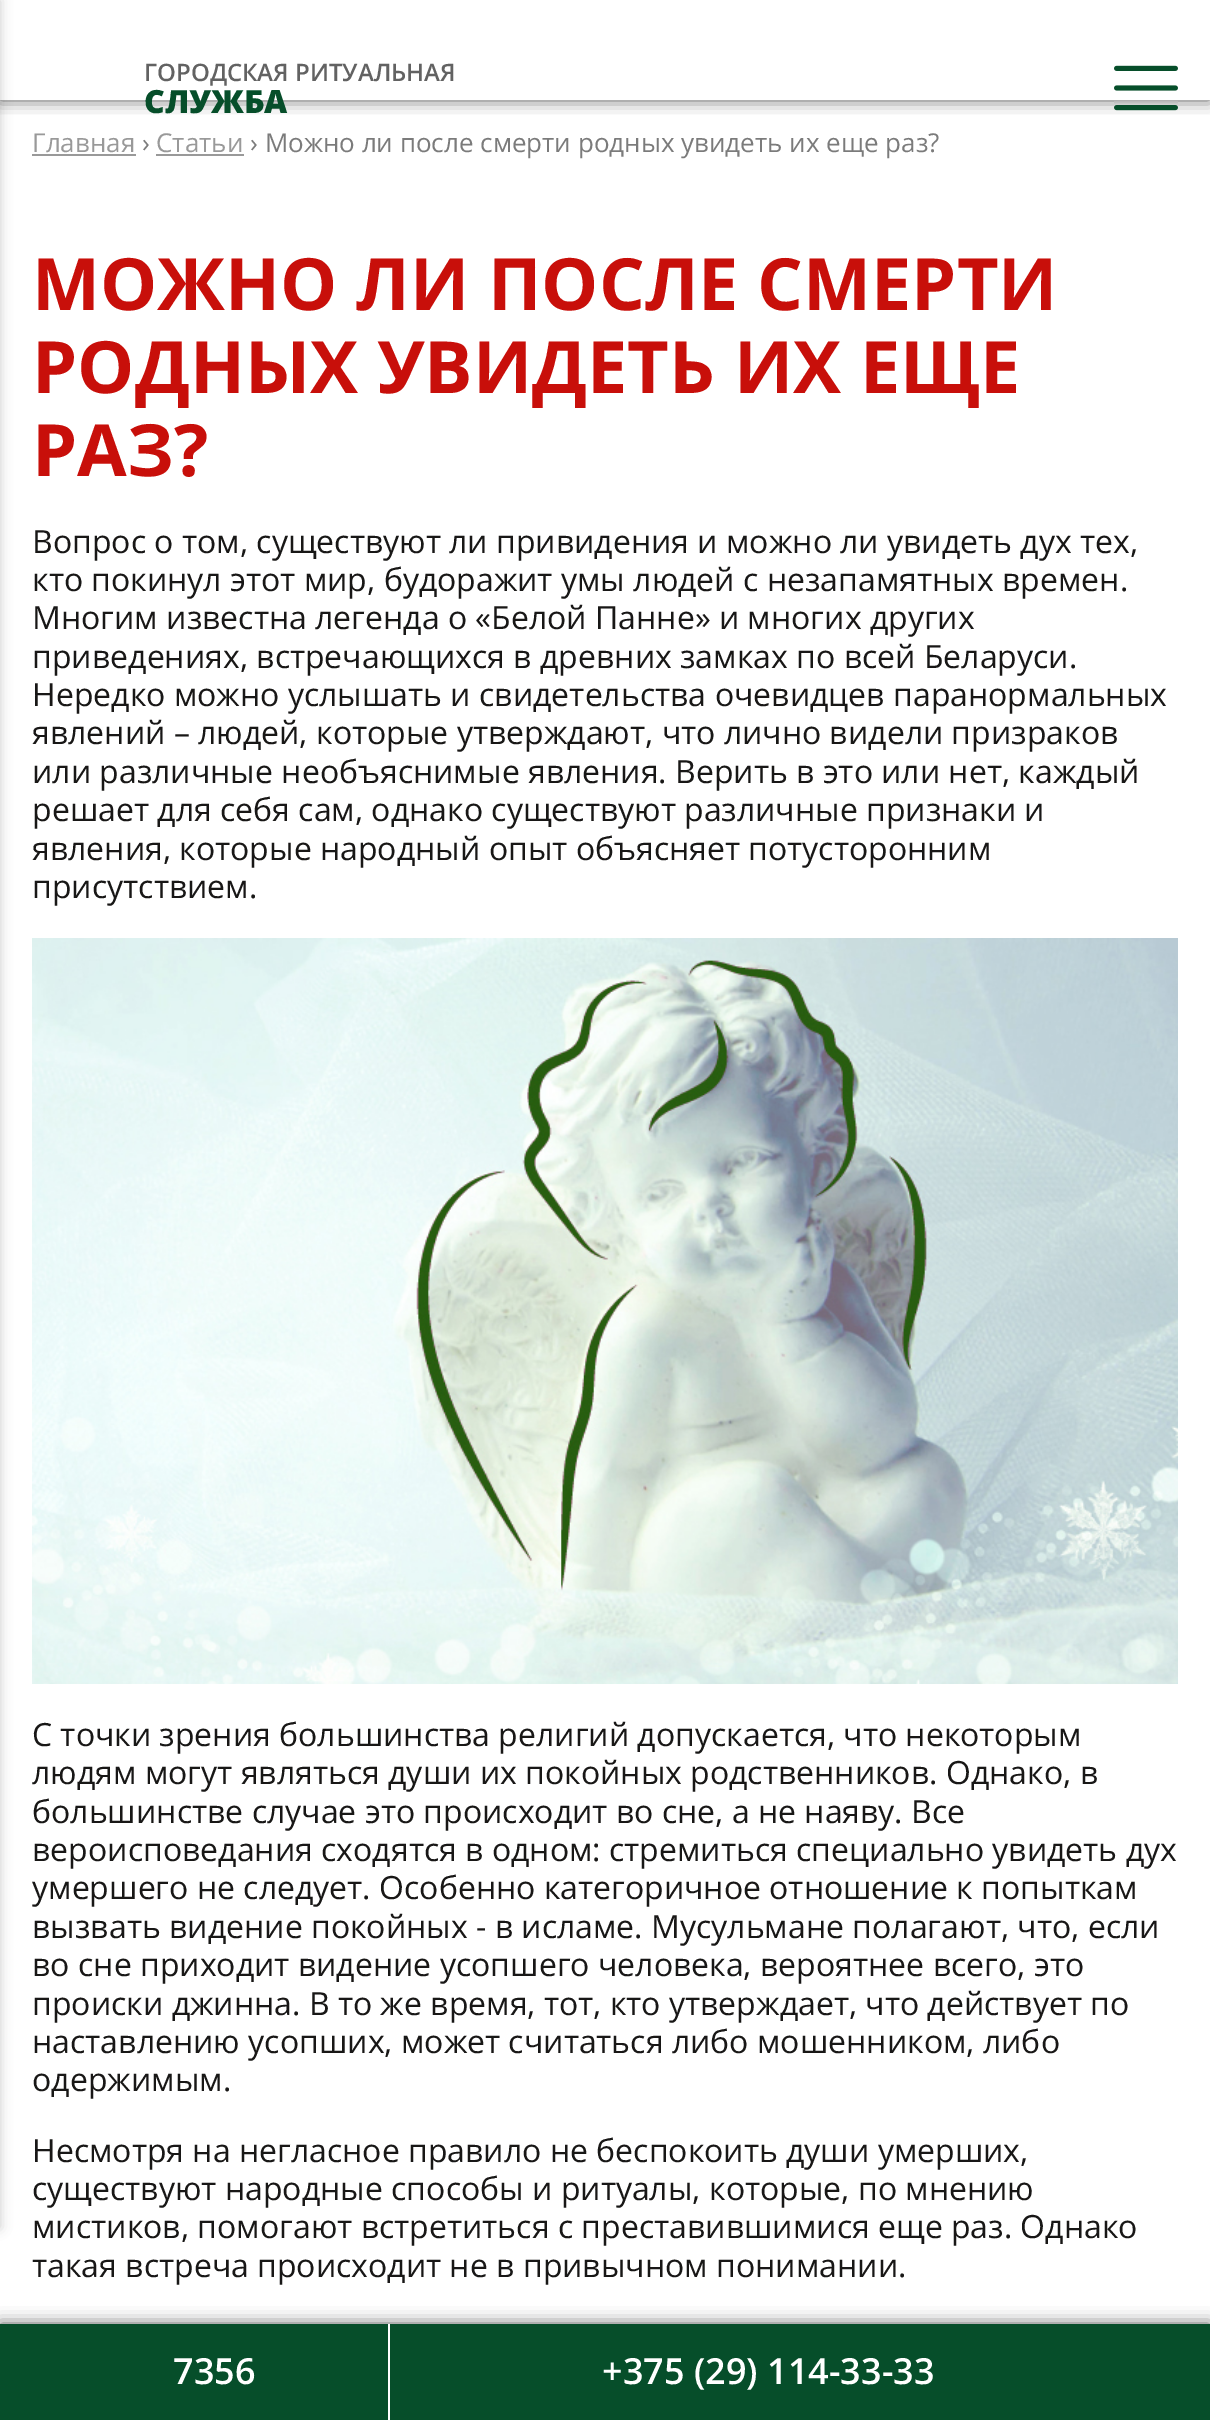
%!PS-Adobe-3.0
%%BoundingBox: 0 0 1210 2420
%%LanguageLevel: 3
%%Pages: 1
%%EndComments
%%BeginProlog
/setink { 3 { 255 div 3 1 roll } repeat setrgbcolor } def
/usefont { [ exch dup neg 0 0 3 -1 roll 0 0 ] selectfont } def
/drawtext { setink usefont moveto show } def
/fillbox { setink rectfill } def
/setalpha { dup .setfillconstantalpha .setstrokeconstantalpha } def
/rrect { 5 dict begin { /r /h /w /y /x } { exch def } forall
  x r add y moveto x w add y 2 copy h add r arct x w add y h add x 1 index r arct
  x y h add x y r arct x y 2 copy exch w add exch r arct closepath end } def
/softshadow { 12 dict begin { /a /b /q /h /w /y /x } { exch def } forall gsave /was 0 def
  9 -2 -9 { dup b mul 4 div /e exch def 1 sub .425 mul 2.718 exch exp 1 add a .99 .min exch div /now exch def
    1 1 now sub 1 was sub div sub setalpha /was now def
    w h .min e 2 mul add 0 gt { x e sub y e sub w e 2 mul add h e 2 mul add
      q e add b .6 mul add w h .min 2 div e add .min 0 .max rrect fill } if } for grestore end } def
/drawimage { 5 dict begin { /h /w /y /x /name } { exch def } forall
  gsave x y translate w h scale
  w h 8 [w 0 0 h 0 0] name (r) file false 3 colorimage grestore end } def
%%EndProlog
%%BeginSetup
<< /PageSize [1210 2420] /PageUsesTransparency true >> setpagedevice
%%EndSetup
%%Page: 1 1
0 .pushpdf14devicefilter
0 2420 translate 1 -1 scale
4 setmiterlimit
0 0 1210 2420 255 255 255 fillbox
gsave
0 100 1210 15 rectclip
0 0 0 setink
0 0 1210 100 0 8 0.64 softshadow
grestore
0 0 0 setink
-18 0 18 2228 0 6 0.2 softshadow
(ГОРОДСКАЯ РИТУАЛЬНАЯ) 144 81 /OpenSans-SemiBold 24 98 98 98 drawtext
(СЛУЖБА) 144 113 /OpenSans-ExtraBold 32 6 78 42 drawtext
(assets/img1.rgb) 1114 65 64 46 drawimage
(Главная) 32 152 /OpenSans-Regular 26 153 153 153 drawtext
32 154 104 2 153 153 153 fillbox
(›) 142 152 /OpenSans-Regular 26 123 123 123 drawtext
(Статьи) 156 152 /OpenSans-Regular 26 153 153 153 drawtext
156 154 88 2 153 153 153 fillbox
(› Можно ли после смерти родных увидеть их еще раз?) 250 152 /OpenSans-Regular 26 123 123 123 drawtext
(МОЖНО ЛИ ПОСЛЕ СМЕРТИ) 32 310 /OpenSans-Bold 72 200 15 10 drawtext
(РОДНЫХ УВИДЕТЬ ИХ ЕЩЕ) 32 393 /OpenSans-Bold 72 200 15 10 drawtext
(РАЗ?) 32 476 /OpenSans-Bold 72 200 15 10 drawtext
(Вопрос о том, существуют ли привидения и можно ли увидеть дух тех,) 32 553 /OpenSans-Regular 32 24 23 22 drawtext
(кто покинул этот мир, будоражит умы людей с незапамятных времен.) 32 591 /OpenSans-Regular 32 24 23 22 drawtext
(Многим известна легенда о «Белой Панне» и многих других) 32 629 /OpenSans-Regular 32 24 23 22 drawtext
(приведениях, встречающихся в древних замках по всей Беларуси.) 32 668 /OpenSans-Regular 32 24 23 22 drawtext
(Нередко можно услышать и свидетельства очевидцев паранормальных) 32 706 /OpenSans-Regular 32 24 23 22 drawtext
(явлений – людей, которые утверждают, что лично видели призраков) 32 744 /OpenSans-Regular 32 24 23 22 drawtext
(или различные необъяснимые явления. Верить в это или нет, каждый) 32 783 /OpenSans-Regular 32 24 23 22 drawtext
(решает для себя сам, однако существуют различные признаки и) 32 821 /OpenSans-Regular 32 24 23 22 drawtext
(явления, которые народный опыт объясняет потусторонним) 32 860 /OpenSans-Regular 32 24 23 22 drawtext
(присутствием.) 32 898 /OpenSans-Regular 32 24 23 22 drawtext
(assets/img2.rgb) 32 938 1146 746 drawimage
(С точки зрения большинства религий допускается, что некоторым) 32 1746 /OpenSans-Regular 32 24 23 22 drawtext
(людям могут являться души их покойных родственников. Однако, в) 32 1784 /OpenSans-Regular 32 24 23 22 drawtext
(большинстве случае это происходит во сне, а не наяву. Все) 32 1823 /OpenSans-Regular 32 24 23 22 drawtext
(вероисповедания сходятся в одном: стремиться специально увидеть дух) 32 1861 /OpenSans-Regular 32 24 23 22 drawtext
(умершего не следует. Особенно категоричное отношение к попыткам) 32 1899 /OpenSans-Regular 32 24 23 22 drawtext
(вызвать видение покойных - в исламе. Мусульмане полагают, что, если) 32 1938 /OpenSans-Regular 32 24 23 22 drawtext
(во сне приходит видение усопшего человека, вероятнее всего, это) 32 1976 /OpenSans-Regular 32 24 23 22 drawtext
(происки джинна. В то же время, тот, кто утверждает, что действует по) 32 2015 /OpenSans-Regular 32 24 23 22 drawtext
(наставлению усопших, может считаться либо мошенником, либо) 32 2053 /OpenSans-Regular 32 24 23 22 drawtext
(одержимым.) 32 2091 /OpenSans-Regular 32 24 23 22 drawtext
(Несмотря на негласное правило не беспокоить души умерших,) 32 2162 /OpenSans-Regular 32 24 23 22 drawtext
(существуют народные способы и ритуалы, которые, по мнению) 32 2200 /OpenSans-Regular 32 24 23 22 drawtext
(мистиков, помогают встретиться с преставившимися еще раз. Однако) 32 2238 /OpenSans-Regular 32 24 23 22 drawtext
(такая встреча происходит не в привычном понимании.) 32 2277 /OpenSans-Regular 32 24 23 22 drawtext
0 0 0 setink
0 2324 1210 96 0 8 0.64 softshadow
0 2324 1210 96 6 78 42 fillbox
388 2324 2 96 255 255 255 fillbox
(7356) 173 2384 /OpenSans-SemiBold 36 255 255 255 drawtext
(+375 \(29\) 114-33-33) 602 2384 /OpenSans-SemiBold 36 255 255 255 drawtext
.poppdf14devicefilter showpage
%%EOF
